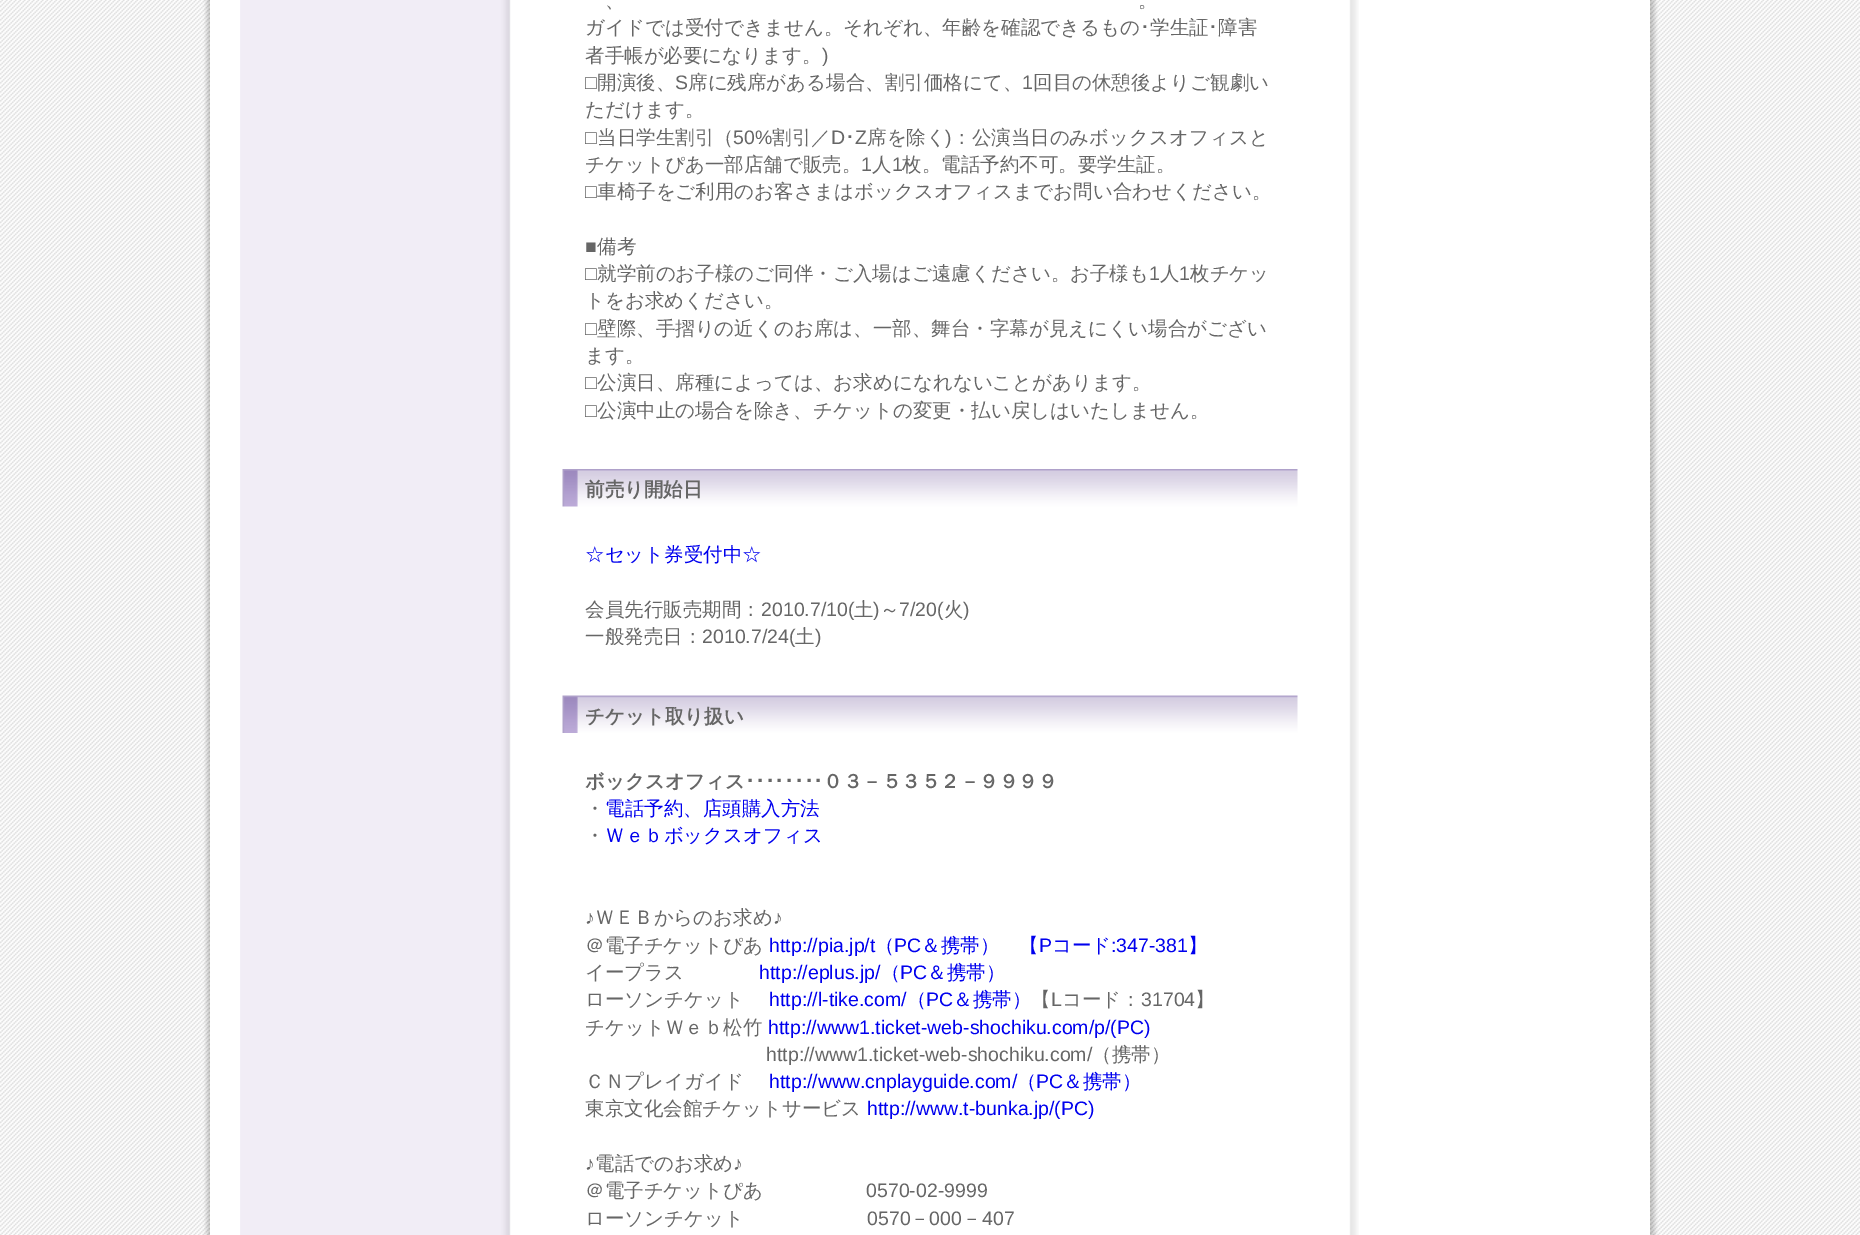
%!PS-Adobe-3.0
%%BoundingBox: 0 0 1860 1235
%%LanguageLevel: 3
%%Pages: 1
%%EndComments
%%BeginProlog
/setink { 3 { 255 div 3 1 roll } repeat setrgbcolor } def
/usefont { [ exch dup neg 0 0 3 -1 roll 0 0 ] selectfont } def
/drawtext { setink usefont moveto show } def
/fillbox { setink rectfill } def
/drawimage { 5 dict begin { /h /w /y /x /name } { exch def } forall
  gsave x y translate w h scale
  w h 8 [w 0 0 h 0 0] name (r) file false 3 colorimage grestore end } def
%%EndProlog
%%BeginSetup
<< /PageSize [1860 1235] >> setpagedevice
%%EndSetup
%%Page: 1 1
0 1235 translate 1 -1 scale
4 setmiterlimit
0 0 1860 1235 255 255 255 fillbox
(assets/img1.rgb) 0 0 1860 1235 drawimage
210 0 1440 1235 255 255 255 fillbox
(assets/img2.rgb) 240 0 1119 1235 drawimage
(、) 605 7 /WenQuanYiZenHei-Medium 19.5 102 102 102 drawtext
(。) 1138 7 /WenQuanYiZenHei-Medium 19.5 102 102 102 drawtext
(ガイドでは受付できません。それぞれ、年齢を確認できるもの) 585 34 /WenQuanYiZenHei-Medium 19.5 102 102 102 drawtext
(･) 1140 34 /IPAGothic-Regular 19.5 102 102 102 drawtext
(学生証) 1150 34 /WenQuanYiZenHei-Medium 19.5 102 102 102 drawtext
(･) 1208 34 /IPAGothic-Regular 19.5 102 102 102 drawtext
(障害) 1218 34 /WenQuanYiZenHei-Medium 19.5 102 102 102 drawtext
(者手帳が必要になります。) 585 62 /WenQuanYiZenHei-Medium 19.5 102 102 102 drawtext
(\)) 822 62 /LiberationSans-Regular 19.5 102 102 102 drawtext
(□) 585 89 /LiberationSans-Regular 19.5 102 102 102 drawtext
(開演後、) 597 89 /WenQuanYiZenHei-Medium 19.5 102 102 102 drawtext
(S) 675 89 /LiberationSans-Regular 19.5 102 102 102 drawtext
(席に残席がある場合、割引価格にて、) 688 89 /WenQuanYiZenHei-Medium 19.5 102 102 102 drawtext
(1) 1022 89 /LiberationSans-Regular 19.5 102 102 102 drawtext
(回目の休憩後よりご観劇い) 1033 89 /WenQuanYiZenHei-Medium 19.5 102 102 102 drawtext
(ただけます。) 585 116 /WenQuanYiZenHei-Medium 19.5 102 102 102 drawtext
(□) 585 144 /LiberationSans-Regular 19.5 102 102 102 drawtext
(当日学生割引（) 597 144 /WenQuanYiZenHei-Medium 19.5 102 102 102 drawtext
(50%) 733 144 /LiberationSans-Regular 19.5 102 102 102 drawtext
(割引／) 772 144 /WenQuanYiZenHei-Medium 19.5 102 102 102 drawtext
(D) 831 144 /LiberationSans-Regular 19.5 102 102 102 drawtext
(･) 845 144 /IPAGothic-Regular 19.5 102 102 102 drawtext
(Z) 855 144 /LiberationSans-Regular 19.5 102 102 102 drawtext
(席を除く) 867 144 /WenQuanYiZenHei-Medium 19.5 102 102 102 drawtext
(\)) 945 144 /LiberationSans-Regular 19.5 102 102 102 drawtext
(：公演当日のみボックスオフィスと) 952 144 /WenQuanYiZenHei-Medium 19.5 102 102 102 drawtext
(チケットぴあ一部店舗で販売。) 585 171 /WenQuanYiZenHei-Medium 19.5 102 102 102 drawtext
(1) 861 171 /LiberationSans-Regular 19.5 102 102 102 drawtext
(人) 872 171 /WenQuanYiZenHei-Medium 19.5 102 102 102 drawtext
(1) 892 171 /LiberationSans-Regular 19.5 102 102 102 drawtext
(枚。電話予約不可。要学生証。) 902 171 /WenQuanYiZenHei-Medium 19.5 102 102 102 drawtext
(□) 585 198 /LiberationSans-Regular 19.5 102 102 102 drawtext
(車椅子をご利用のお客さまはボックスオフィスまでお問い合わせください。) 597 198 /WenQuanYiZenHei-Medium 19.5 102 102 102 drawtext
(■) 585 253 /LiberationSans-Regular 19.5 102 102 102 drawtext
(備考) 597 253 /WenQuanYiZenHei-Medium 19.5 102 102 102 drawtext
(□) 585 280 /LiberationSans-Regular 19.5 102 102 102 drawtext
(就学前のお子様のご同伴・ご入場はご遠慮ください。お子様も) 597 280 /WenQuanYiZenHei-Medium 19.5 102 102 102 drawtext
(1) 1149 280 /LiberationSans-Regular 19.5 102 102 102 drawtext
(人) 1160 280 /WenQuanYiZenHei-Medium 19.5 102 102 102 drawtext
(1) 1179 280 /LiberationSans-Regular 19.5 102 102 102 drawtext
(枚チケッ) 1190 280 /WenQuanYiZenHei-Medium 19.5 102 102 102 drawtext
(トをお求めください。) 585 307 /WenQuanYiZenHei-Medium 19.5 102 102 102 drawtext
(□) 585 335 /LiberationSans-Regular 19.5 102 102 102 drawtext
(壁際、手摺りの近くのお席は、一部、舞台・字幕が見えにくい場合がござい) 597 335 /WenQuanYiZenHei-Medium 19.5 102 102 102 drawtext
(ます。) 585 362 /WenQuanYiZenHei-Medium 19.5 102 102 102 drawtext
(□) 585 389 /LiberationSans-Regular 19.5 102 102 102 drawtext
(公演日、席種によっては、お求めになれないことがあります。) 597 389 /WenQuanYiZenHei-Medium 19.5 102 102 102 drawtext
(□) 585 417 /LiberationSans-Regular 19.5 102 102 102 drawtext
(公演中止の場合を除き、チケットの変更・払い戻しはいたしません。) 597 417 /WenQuanYiZenHei-Medium 19.5 102 102 102 drawtext
(assets/img3.rgb) 562 469 736 38 drawimage
(前売り開始日) 585 496 /WenQuanYiZenHei-Bold 19.5 102 102 102 drawtext
(☆セット券受付中☆) 585 561 /WenQuanYiZenHei-Medium 19.5 0 0 238 drawtext
(会員先行販売期間：) 585 616 /WenQuanYiZenHei-Medium 19.5 102 102 102 drawtext
(2010.7/10\() 761 616 /LiberationSans-Regular 19.5 102 102 102 drawtext
(土) 854 616 /WenQuanYiZenHei-Medium 19.5 102 102 102 drawtext
(\)) 873 616 /LiberationSans-Regular 19.5 102 102 102 drawtext
(～) 880 616 /WenQuanYiZenHei-Medium 19.5 102 102 102 drawtext
(7/20\() 899 616 /LiberationSans-Regular 19.5 102 102 102 drawtext
(火) 944 616 /WenQuanYiZenHei-Medium 19.5 102 102 102 drawtext
(\)) 963 616 /LiberationSans-Regular 19.5 102 102 102 drawtext
(一般発売日：) 585 643 /WenQuanYiZenHei-Medium 19.5 102 102 102 drawtext
(2010.7/24\() 702 643 /LiberationSans-Regular 19.5 102 102 102 drawtext
(土) 795 643 /WenQuanYiZenHei-Medium 19.5 102 102 102 drawtext
(\)) 815 643 /LiberationSans-Regular 19.5 102 102 102 drawtext
(assets/img4.rgb) 562 695 736 38 drawimage
(チケット取り扱い) 585 723 /WenQuanYiZenHei-Bold 19.5 102 102 102 drawtext
(ボックスオフィス) 585 788 /WenQuanYiZenHei-Bold 19.5 102 102 102 drawtext
(････････) 745 788 /IPAGothic-Bold 19.5 102 102 102 drawtext
(０３－５３５２－９９９９) 823 788 /WenQuanYiZenHei-Bold 19.5 102 102 102 drawtext
(・) 585 815 /WenQuanYiZenHei-Medium 19.5 102 102 102 drawtext
(電話予約、店頭購入方法) 605 815 /WenQuanYiZenHei-Medium 19.5 0 0 238 drawtext
(・) 585 842 /WenQuanYiZenHei-Medium 19.5 102 102 102 drawtext
(Ｗｅｂボックスオフィス) 605 842 /WenQuanYiZenHei-Medium 19.5 0 0 238 drawtext
(♪) 585 924 /LiberationSans-Regular 19.5 102 102 102 drawtext
(ＷＥＢからのお求め) 595 924 /WenQuanYiZenHei-Medium 19.5 102 102 102 drawtext
(♪) 773 924 /LiberationSans-Regular 19.5 102 102 102 drawtext
(＠電子チケットぴあ) 585 952 /WenQuanYiZenHei-Medium 19.5 102 102 102 drawtext
(http://pia.jp/t) 769 952 /LiberationSans-Regular 19.5 0 0 238 drawtext
(（) 875 952 /WenQuanYiZenHei-Medium 19.5 0 0 238 drawtext
(PC) 894 952 /LiberationSans-Regular 19.5 0 0 238 drawtext
(＆携帯）) 921 952 /WenQuanYiZenHei-Medium 19.5 0 0 238 drawtext
(【) 1019 952 /WenQuanYiZenHei-Medium 19.5 0 0 238 drawtext
(P) 1039 952 /LiberationSans-Regular 19.5 0 0 238 drawtext
(コード) 1052 952 /WenQuanYiZenHei-Medium 19.5 0 0 238 drawtext
(:347-381) 1111 952 /LiberationSans-Regular 19.5 0 0 238 drawtext
(】) 1188 952 /WenQuanYiZenHei-Medium 19.5 0 0 238 drawtext
(イープラス) 585 979 /WenQuanYiZenHei-Medium 19.5 102 102 102 drawtext
(http://eplus.jp/) 759 979 /LiberationSans-Regular 19.5 0 0 238 drawtext
(（) 881 979 /WenQuanYiZenHei-Medium 19.5 0 0 238 drawtext
(PC) 900 979 /LiberationSans-Regular 19.5 0 0 238 drawtext
(＆携帯）) 927 979 /WenQuanYiZenHei-Medium 19.5 0 0 238 drawtext
(ローソンチケット) 585 1006 /WenQuanYiZenHei-Medium 19.5 102 102 102 drawtext
(http://l-tike.com/) 769 1006 /LiberationSans-Regular 19.5 0 0 238 drawtext
(（) 907 1006 /WenQuanYiZenHei-Medium 19.5 0 0 238 drawtext
(PC) 926 1006 /LiberationSans-Regular 19.5 0 0 238 drawtext
(＆携帯）) 953 1006 /WenQuanYiZenHei-Medium 19.5 0 0 238 drawtext
(【) 1031 1006 /WenQuanYiZenHei-Medium 19.5 102 102 102 drawtext
(L) 1051 1006 /LiberationSans-Regular 19.5 102 102 102 drawtext
(コード：) 1062 1006 /WenQuanYiZenHei-Medium 19.5 102 102 102 drawtext
(31704) 1141 1006 /LiberationSans-Regular 19.5 102 102 102 drawtext
(】) 1195 1006 /WenQuanYiZenHei-Medium 19.5 102 102 102 drawtext
(チケットＷｅｂ松竹) 585 1034 /WenQuanYiZenHei-Medium 19.5 102 102 102 drawtext
(http://www1.ticket-web-shochiku.com/p/\(PC\)) 768 1034 /LiberationSans-Regular 19.5 0 0 238 drawtext
(http://www1.ticket-web-shochiku.com/) 766 1061 /LiberationSans-Regular 19.5 102 102 102 drawtext
(（携帯）) 1092 1061 /WenQuanYiZenHei-Medium 19.5 102 102 102 drawtext
(ＣＮプレイガイド) 585 1088 /WenQuanYiZenHei-Medium 19.5 102 102 102 drawtext
(http://www.cnplayguide.com/) 769 1088 /LiberationSans-Regular 19.5 0 0 238 drawtext
(（) 1017 1088 /WenQuanYiZenHei-Medium 19.5 0 0 238 drawtext
(PC) 1036 1088 /LiberationSans-Regular 19.5 0 0 238 drawtext
(＆携帯）) 1063 1088 /WenQuanYiZenHei-Medium 19.5 0 0 238 drawtext
(東京文化会館チケットサービス) 585 1115 /WenQuanYiZenHei-Medium 19.5 102 102 102 drawtext
(http://www.t-bunka.jp/\(PC\)) 867 1115 /LiberationSans-Regular 19.5 0 0 238 drawtext
(♪) 585 1170 /LiberationSans-Regular 19.5 102 102 102 drawtext
(電話でのお求め) 595 1170 /WenQuanYiZenHei-Medium 19.5 102 102 102 drawtext
(♪) 733 1170 /LiberationSans-Regular 19.5 102 102 102 drawtext
(＠電子チケットぴあ) 585 1197 /WenQuanYiZenHei-Medium 19.5 102 102 102 drawtext
(0570-02-9999) 866 1197 /LiberationSans-Regular 19.5 102 102 102 drawtext
(ローソンチケット) 585 1225 /WenQuanYiZenHei-Medium 19.5 102 102 102 drawtext
(0570) 867 1225 /LiberationSans-Regular 19.5 102 102 102 drawtext
(－) 910 1225 /WenQuanYiZenHei-Medium 19.5 102 102 102 drawtext
(000) 929 1225 /LiberationSans-Regular 19.5 102 102 102 drawtext
(－) 962 1225 /WenQuanYiZenHei-Medium 19.5 102 102 102 drawtext
(407) 982 1225 /LiberationSans-Regular 19.5 102 102 102 drawtext
showpage
%%EOF
